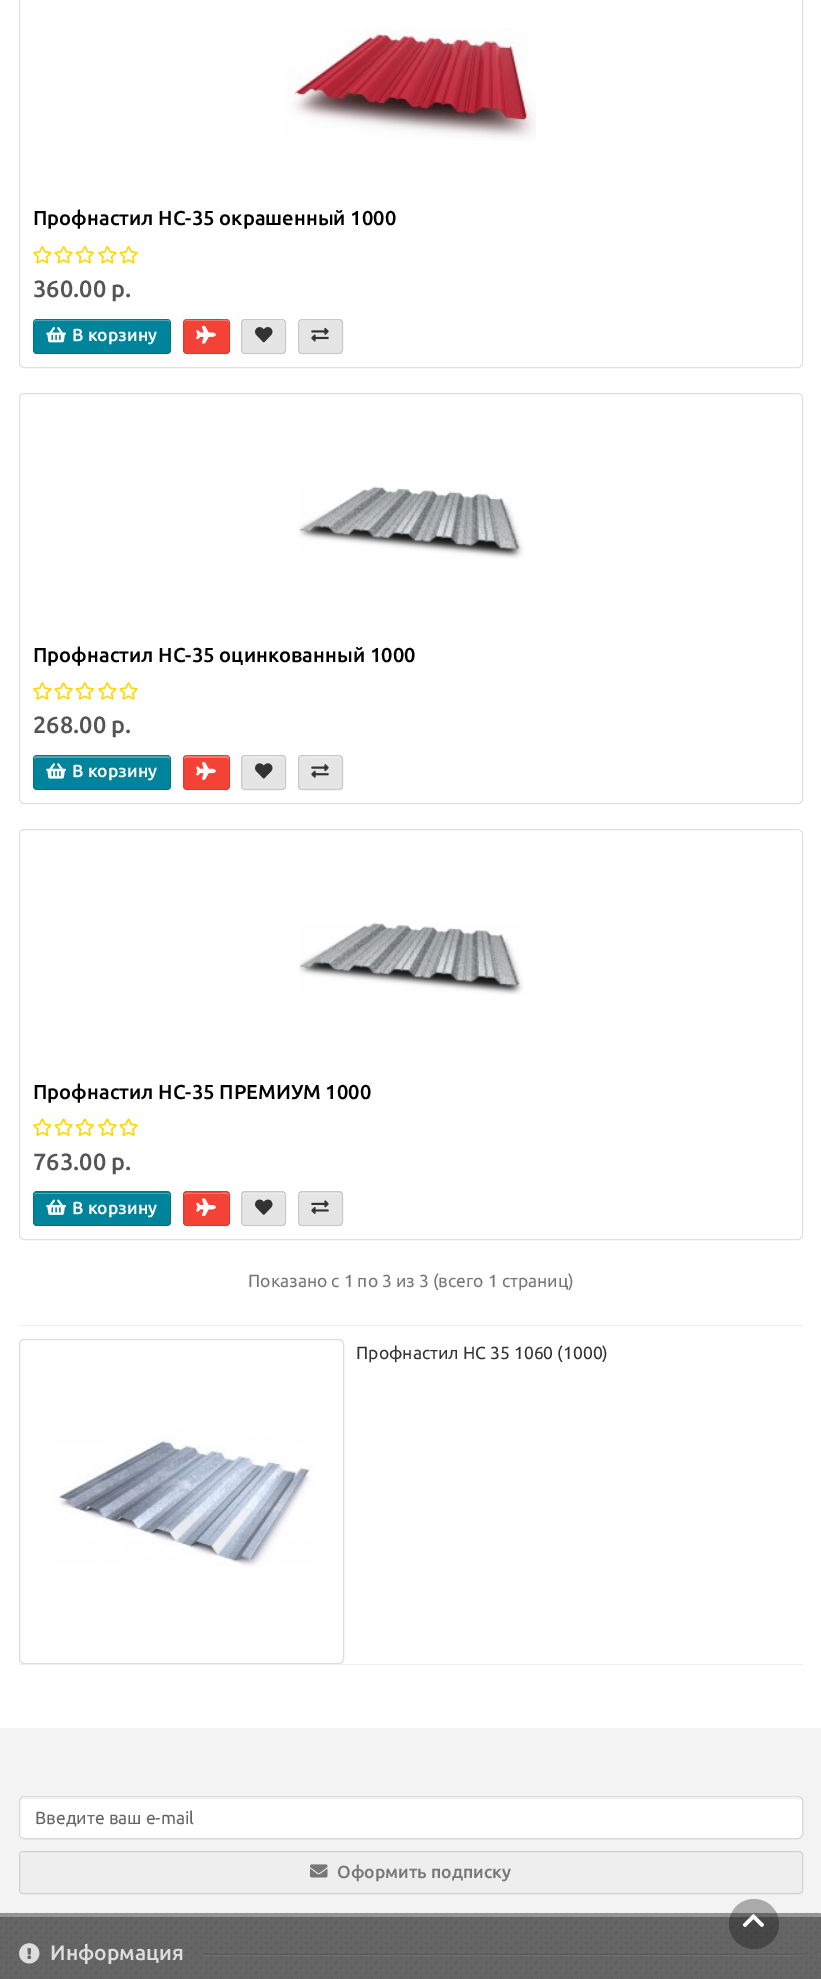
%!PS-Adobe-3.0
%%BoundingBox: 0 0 821 1979
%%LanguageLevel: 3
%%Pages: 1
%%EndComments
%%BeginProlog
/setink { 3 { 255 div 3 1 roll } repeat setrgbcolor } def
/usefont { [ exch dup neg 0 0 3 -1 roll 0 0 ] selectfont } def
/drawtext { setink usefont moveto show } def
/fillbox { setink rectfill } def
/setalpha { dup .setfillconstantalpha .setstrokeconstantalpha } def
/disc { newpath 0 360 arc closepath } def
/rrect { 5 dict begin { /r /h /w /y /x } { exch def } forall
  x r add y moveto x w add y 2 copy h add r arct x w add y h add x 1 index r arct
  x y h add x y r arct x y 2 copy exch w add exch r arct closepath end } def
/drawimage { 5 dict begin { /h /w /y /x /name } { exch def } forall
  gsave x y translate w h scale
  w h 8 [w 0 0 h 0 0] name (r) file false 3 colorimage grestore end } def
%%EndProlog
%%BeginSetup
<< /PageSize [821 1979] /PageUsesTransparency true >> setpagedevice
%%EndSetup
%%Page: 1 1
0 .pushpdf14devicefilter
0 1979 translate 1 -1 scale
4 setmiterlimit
0 0 821 1979 255 255 255 fillbox
224 224 224 setink
19.5 -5.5 783 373 4.5 rrect stroke
(assets/img1.rgb) 286 28 250 113 drawimage
(Профнастил НС-35 окрашенный 1000) 33 225 /Ubuntu-Medium 20.1 0 0 0 drawtext
(assets/img2.rgb) 33 246 19 18 drawimage
(assets/img3.rgb) 54 246 19 18 drawimage
(assets/img4.rgb) 75 246 19 18 drawimage
(assets/img2.rgb) 98 246 19 18 drawimage
(assets/img3.rgb) 119 246 19 18 drawimage
(360.00 р.) 33 297 /Ubuntu-Medium 23.5 85 85 85 drawtext
0 132 156 setink
33 319 138 35 4 rrect fill
77 169 186 setink
36 321 moveto 168 321 lineto 169 321 170 322 170 324 curveto 170 322 lineto 170 321 169 320 168 320 curveto 36 320 lineto 35 320 34 321 34 322 curveto 34 324 lineto 34 322 35 321 36 321 curveto closepath fill
0.12 setalpha
0 0 0 setink
33.5 319.5 137 34 3.5 rrect stroke
1 setalpha
(assets/img5.rgb) 46 327 20 16 drawimage
(В корзину) 72 341 /Ubuntu-Medium 17.5 255 255 255 drawtext
244 67 54 setink
183 319 47 35 4 rrect fill
247 123 114 setink
186 321 moveto 226 321 lineto 228 321 229 322 229 324 curveto 229 318 225 320 220 320 curveto 193 320 lineto 188 320 184 318 184 324 curveto 184 322 185 321 186 321 curveto closepath fill
0.12 setalpha
0 0 0 setink
183.5 319.5 46 34 3.5 rrect stroke
1 setalpha
(assets/img6.rgb) 196 325 20 19 drawimage
229 229 229 setink
241 319 45 35 4 rrect fill
237 237 237 setink
245 321 moveto 282 321 lineto 284 321 285 322 285 324 curveto 285 322 lineto 285 321 284 320 282 320 curveto 246 320 lineto 244 320 243 321 243 322 curveto closepath fill
0.12 setalpha
0 0 0 setink
241.5 319.5 44 34 3.5 rrect stroke
1 setalpha
(assets/img7.rgb) 255 327 18 16 drawimage
229 229 229 setink
298 319 45 35 4 rrect fill
237 237 237 setink
301 321 moveto 339 321 lineto 340 321 341 322 341 324 curveto 341 319 337 320 332 320 curveto 308 320 lineto 303 320 299 319 299 324 curveto 299 322 300 321 301 321 curveto closepath fill
0.12 setalpha
0 0 0 setink
298.5 319.5 44 34 3.5 rrect stroke
1 setalpha
(assets/img8.rgb) 311 327 18 15 drawimage
224 224 224 setink
19.5 393.5 783 410 4.5 rrect stroke
(assets/img9.rgb) 298 486 226 73 drawimage
(Профнастил НС-35 оцинкованный 1000) 33 662 /Ubuntu-Medium 20.1 0 0 0 drawtext
(assets/img10.rgb) 33 682 19 18 drawimage
(assets/img11.rgb) 54 682 19 18 drawimage
(assets/img12.rgb) 75 682 19 18 drawimage
(assets/img10.rgb) 98 682 19 18 drawimage
(assets/img11.rgb) 119 682 19 18 drawimage
(268.00 р.) 33 733 /Ubuntu-Medium 23.5 85 85 85 drawtext
0 132 156 setink
33 755 138 35 4 rrect fill
77 169 186 setink
36 758 moveto 168 758 lineto 169 758 170 759 170 760 curveto 170 758 lineto 170 757 169 756 168 756 curveto 36 756 lineto 35 756 34 757 34 758 curveto 34 760 lineto 34 759 35 758 36 758 curveto closepath fill
0.12 setalpha
0 0 0 setink
33.5 755.5 137 34 3.5 rrect stroke
1 setalpha
(assets/img13.rgb) 46 763 20 16 drawimage
(В корзину) 72 777 /Ubuntu-Medium 17.5 255 255 255 drawtext
244 67 54 setink
183 755 47 35 4 rrect fill
247 123 114 setink
186 758 moveto 226 758 lineto 228 758 229 759 229 760 curveto 229 754 225 756 220 756 curveto 193 756 lineto 188 756 184 754 184 760 curveto 184 759 185 758 186 758 curveto closepath fill
0.12 setalpha
0 0 0 setink
183.5 755.5 46 34 3.5 rrect stroke
1 setalpha
(assets/img14.rgb) 196 762 20 18 drawimage
229 229 229 setink
241 755 45 35 4 rrect fill
237 237 237 setink
245 758 moveto 282 758 lineto 284 758 285 759 285 760 curveto 285 755 281 756 276 756 curveto 252 756 lineto 250 756 243 755 243 759 curveto closepath fill
0.12 setalpha
0 0 0 setink
241.5 755.5 44 34 3.5 rrect stroke
1 setalpha
(assets/img15.rgb) 255 763 18 16 drawimage
229 229 229 setink
298 755 45 35 4 rrect fill
237 237 237 setink
301 758 moveto 339 758 lineto 340 758 341 759 341 760 curveto 341 755 337 756 332 756 curveto 308 756 lineto 303 756 299 755 299 760 curveto 299 759 300 758 301 758 curveto closepath fill
0.12 setalpha
0 0 0 setink
298.5 755.5 44 34 3.5 rrect stroke
1 setalpha
(assets/img16.rgb) 311 764 18 14 drawimage
224 224 224 setink
19.5 829.5 783 410 4.5 rrect stroke
(assets/img17.rgb) 298 922 226 73 drawimage
(Профнастил НС-35 ПРЕМИУМ 1000) 33 1099 /Ubuntu-Medium 20.1 0 0 0 drawtext
(assets/img18.rgb) 33 1118 19 18 drawimage
(assets/img19.rgb) 54 1118 19 18 drawimage
(assets/img20.rgb) 75 1118 19 18 drawimage
(assets/img18.rgb) 98 1118 19 18 drawimage
(assets/img19.rgb) 119 1118 19 18 drawimage
(763.00 р.) 33 1170 /Ubuntu-Medium 23.5 85 85 85 drawtext
0 132 156 setink
33 1191 138 35 4 rrect fill
77 169 186 setink
36 1194 moveto 168 1194 lineto 169 1194 170 1195 170 1196 curveto 170 1194 169 1193 168 1193 curveto 36 1193 lineto 35 1193 34 1194 34 1196 curveto 34 1195 35 1194 36 1194 curveto closepath fill
0.12 setalpha
0 0 0 setink
33.5 1191.5 137 34 3.5 rrect stroke
1 setalpha
(assets/img21.rgb) 46 1199 20 16 drawimage
(В корзину) 72 1214 /Ubuntu-Medium 17.5 255 255 255 drawtext
244 67 54 setink
183 1191 47 35 4 rrect fill
247 123 114 setink
186 1194 moveto 226 1194 lineto 228 1194 229 1195 229 1196 curveto 229 1191 223 1193 220 1193 curveto 193 1193 lineto 190 1193 184 1191 184 1196 curveto 184 1195 185 1194 186 1194 curveto closepath fill
0.12 setalpha
0 0 0 setink
183.5 1191.5 46 34 3.5 rrect stroke
1 setalpha
(assets/img22.rgb) 196 1198 20 18 drawimage
229 229 229 setink
241 1191 45 35 4 rrect fill
237 237 237 setink
245 1194 moveto 282 1194 lineto 284 1194 285 1195 285 1196 curveto 285 1194 284 1193 282 1193 curveto 246 1193 lineto 244 1193 244 1194 243 1195 curveto closepath fill
0.12 setalpha
0 0 0 setink
241.5 1191.5 44 34 3.5 rrect stroke
1 setalpha
(assets/img23.rgb) 255 1199 18 16 drawimage
229 229 229 setink
298 1191 45 35 4 rrect fill
237 237 237 setink
301 1194 moveto 339 1194 lineto 340 1194 341 1195 341 1196 curveto 341 1192 335 1193 332 1193 curveto 308 1193 lineto 305 1193 299 1192 299 1196 curveto 299 1195 300 1194 301 1194 curveto closepath fill
0.12 setalpha
0 0 0 setink
298.5 1191.5 44 34 3.5 rrect stroke
1 setalpha
(assets/img24.rgb) 311 1200 18 14 drawimage
(Показано с 1 по 3 из 3 \(всего 1 страниц\)) 248 1287 /Ubuntu-Regular 17.5 119 119 119 drawtext
19 1325 784 1 238 238 238 fillbox
221 221 221 setink
19.5 1339.5 324 324 4.5 rrect stroke
(assets/img25.rgb) 55 1427 260 140 drawimage
(Профнастил НС 35 1060 \(1000\)) 356 1359 /Ubuntu-Regular 17.5 51 51 51 drawtext
19 1664 784 1 238 238 238 fillbox
0 1728 821 185 243 243 243 fillbox
0 1913 821 66 101 101 101 fillbox
(assets/img28.rgb) 0 1912 821 67 drawimage
0.3 setalpha
0 1913 821 4 255 255 255 fillbox
0 0 0 setink
754 1924 25 disc fill
1 setalpha
(assets/img26.rgb) 742 1914 23 14 drawimage
255 255 255 setink
19 1796 784 43 5 rrect fill
236 236 236 setink
24 1799 moveto 798 1799 lineto 800 1800 lineto 800 1799 798 1798 797 1798 curveto 24 1798 lineto 22 1798 20 1800 20 1802 curveto 20 1800 22 1799 24 1799 curveto closepath fill
0.15 setalpha
0 0 0 setink
19.5 1796.5 783 42 4.5 rrect stroke
1 setalpha
(Введите ваш e-mail) 35 1824 /Ubuntu-Regular 17.5 102 102 102 drawtext
238 238 238 setink
19 1851 784 43 4 rrect fill
243 243 243 setink
22 1854 moveto 799 1854 lineto 800 1854 801 1855 801 1856 curveto 801 1854 800 1853 798 1853 curveto 22 1853 lineto 21 1853 20 1854 20 1856 curveto 20 1855 21 1854 22 1854 curveto closepath fill
209 209 209 setink
19.5 1851.5 783 42 3.5 rrect stroke
(assets/img27.rgb) 310 1864 18 14 drawimage
(Оформить подписку) 337 1878 /Ubuntu-Medium 17.5 119 119 119 drawtext
(assets/img29.rgb) 19 1943 21 21 drawimage
(Информация) 50 1960 /Ubuntu-Medium 21 221 221 221 drawtext
203 1954 600 1 86 86 86 fillbox
203 1955 600 1 116 116 116 fillbox
.poppdf14devicefilter showpage
%%EOF
